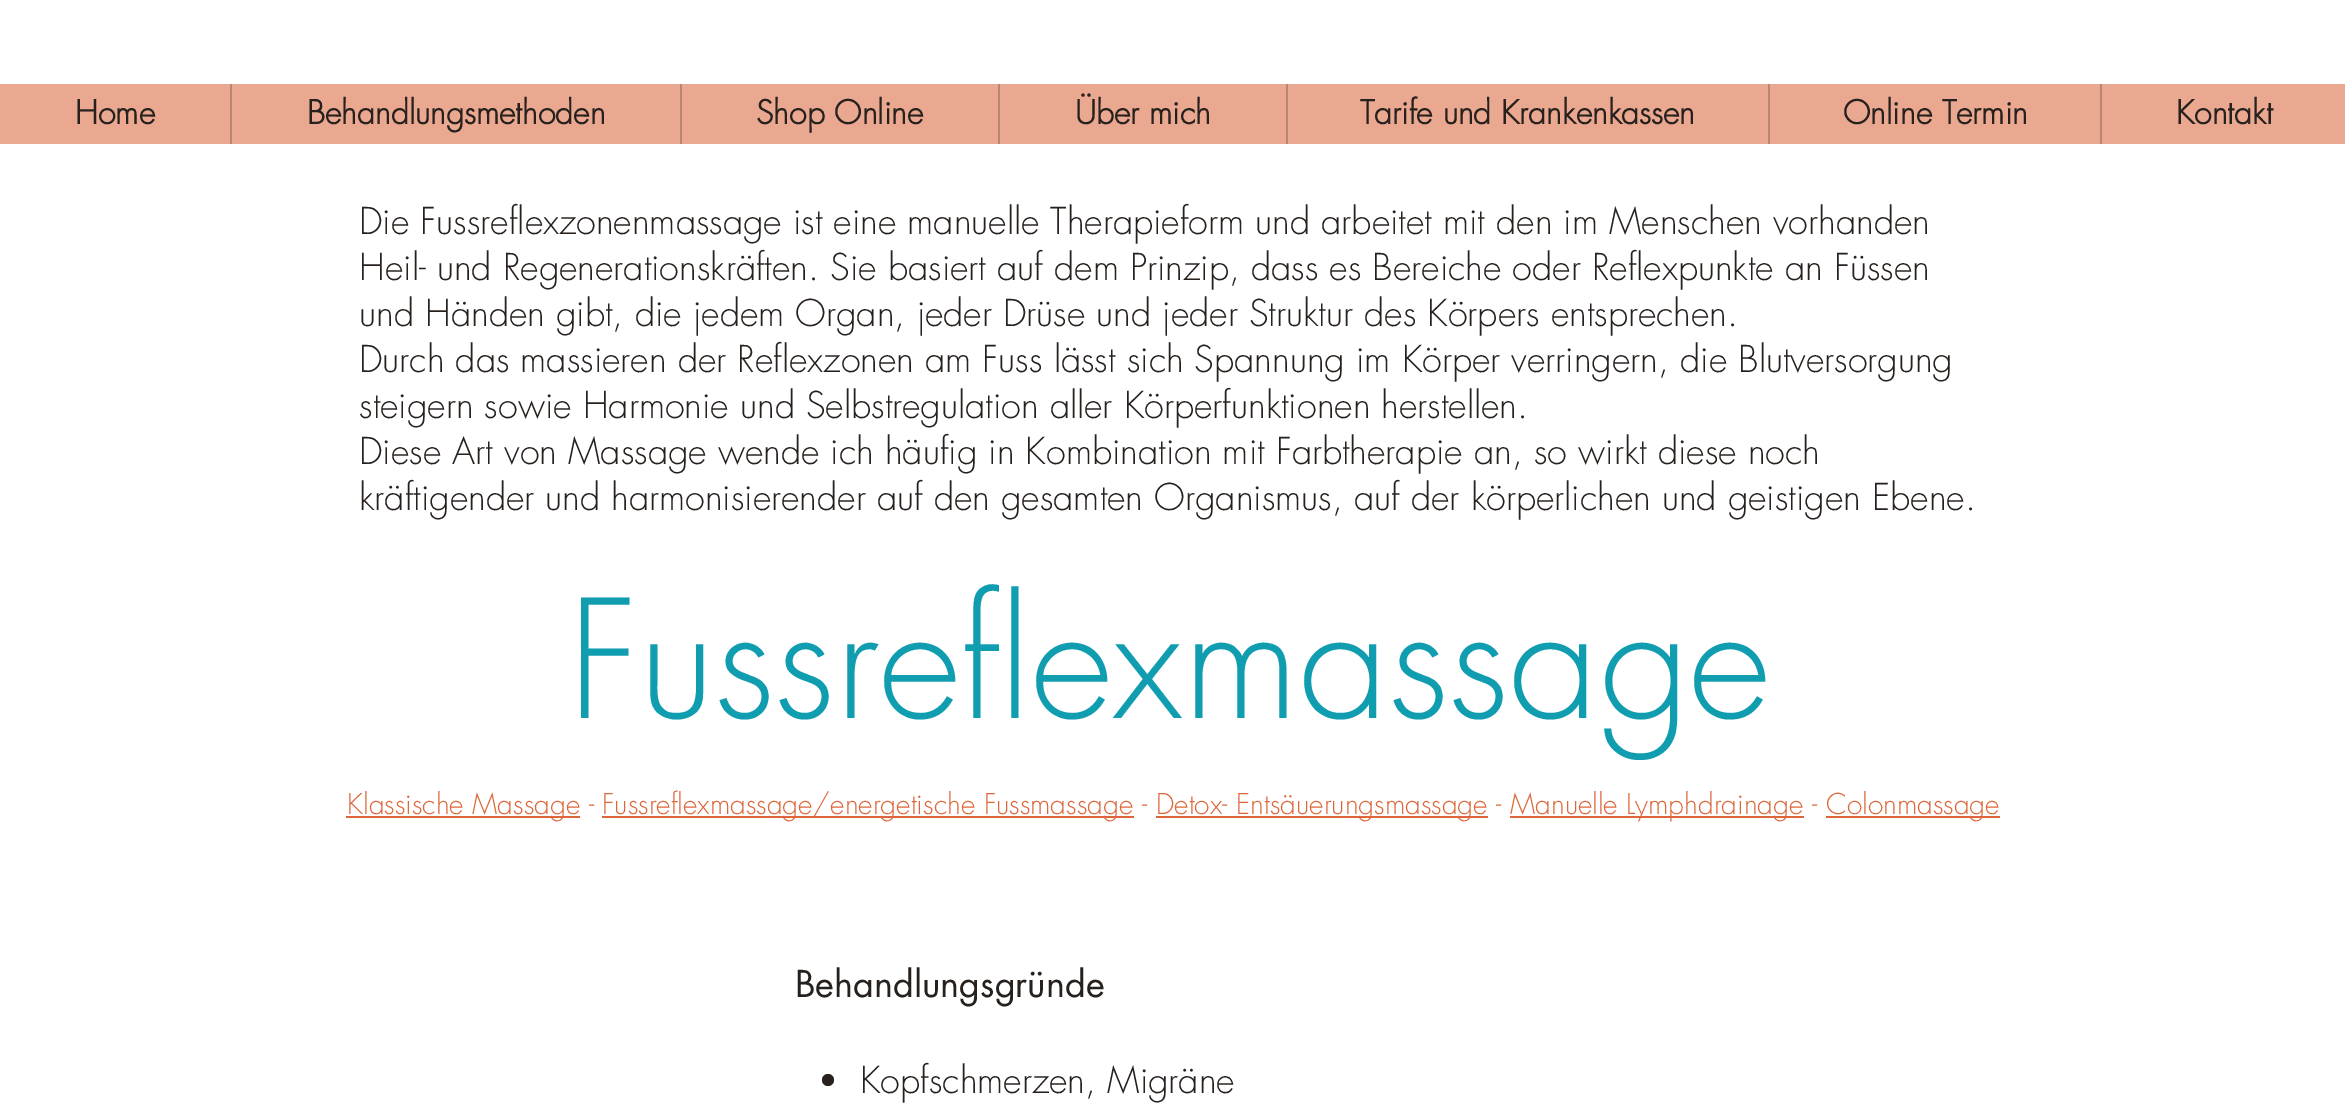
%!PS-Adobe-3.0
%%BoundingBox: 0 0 2345 1116
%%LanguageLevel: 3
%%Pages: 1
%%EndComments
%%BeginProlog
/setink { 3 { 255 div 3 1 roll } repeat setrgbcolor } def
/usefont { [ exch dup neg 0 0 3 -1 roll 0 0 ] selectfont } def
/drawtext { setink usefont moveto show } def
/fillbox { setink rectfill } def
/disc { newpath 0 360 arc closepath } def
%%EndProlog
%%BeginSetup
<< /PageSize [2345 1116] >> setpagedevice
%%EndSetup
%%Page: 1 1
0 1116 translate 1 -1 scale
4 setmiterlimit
0 0 2345 1116 255 255 255 fillbox
0 84 2345 60 234 168 144 fillbox
(Home) 75 124 /futura-Bold 32 39 33 30 drawtext
230 84 2 60 185 134 116 fillbox
(Behandlungsmethoden) 307 124 /futura-Bold 32 39 33 30 drawtext
680 84 2 60 185 134 116 fillbox
(Shop Online) 756 124 /futura-Bold 32 39 33 30 drawtext
998 84 2 60 185 134 116 fillbox
(Über mich) 1075 124 /futura-Bold 32 39 33 30 drawtext
1286 84 2 60 185 134 116 fillbox
(Tarife und Krankenkassen) 1360 124 /futura-Bold 32 39 33 30 drawtext
1768 84 2 60 185 134 116 fillbox
(Online Termin) 1843 124 /futura-Bold 32 39 33 30 drawtext
2100 84 2 60 185 134 116 fillbox
(Kontakt) 2176 124 /futura-Bold 32 39 33 30 drawtext
(Die Fussreflexzonenmassage ist eine manuelle Therapieform und arbeitet mit den im Menschen vorhanden) 359 234 /futura-Light 36 39 33 30 drawtext
(Heil- und Regenerationskräften. Sie basiert auf dem Prinzip, dass es Bereiche oder Reflexpunkte an Füssen) 359 280 /futura-Light 36 39 33 30 drawtext
(und Händen gibt, die jedem Organ, jeder Drüse und jeder Struktur des Körpers entsprechen.) 359 326 /futura-Light 36 39 33 30 drawtext
(Durch das massieren der Reflexzonen am Fuss lässt sich Spannung im Körper verringern, die Blutversorgung) 359 372 /futura-Light 36 39 33 30 drawtext
(steigern sowie Harmonie und Selbstregulation aller Körperfunktionen herstellen.) 359 418 /futura-Light 36 39 33 30 drawtext
(Diese Art von Massage wende ich häufig in Kombination mit Farbtherapie an, so wirkt diese noch) 359 464 /futura-Light 36 39 33 30 drawtext
(kräftigender und harmonisierender auf den gesamten Organismus, auf der körperlichen und geistigen Ebene.) 359 510 /futura-Light 36 39 33 30 drawtext
(Fussreflexmassage) 568 718 /futura-Light 160 16 157 176 drawtext
346 816 234 2 221 102 58 fillbox
(Klassische Massage -) 347 814 /futura-Light 28 221 102 58 drawtext
602 816 532 2 221 102 58 fillbox
(Fussreflexmassage/energetische Fussmassage -) 602 814 /futura-Light 28 221 102 58 drawtext
1156 816 332 2 221 102 58 fillbox
(Detox- Entsäuerungsmassage -) 1156 814 /futura-Light 28 221 102 58 drawtext
1510 816 294 2 221 102 58 fillbox
(Manuelle Lymphdrainage -) 1510 814 /futura-Light 28 221 102 58 drawtext
1826 816 174 2 221 102 58 fillbox
(Colonmassage) 1826 814 /futura-Light 28 221 102 58 drawtext
(Behandlungsgründe) 795 997 /futura-Regular 36 39 33 30 drawtext
828 1080 6 disc fill
(Kopfschmerzen, Migräne) 860 1093 /futura-Light 36 39 33 30 drawtext
showpage
%%EOF
